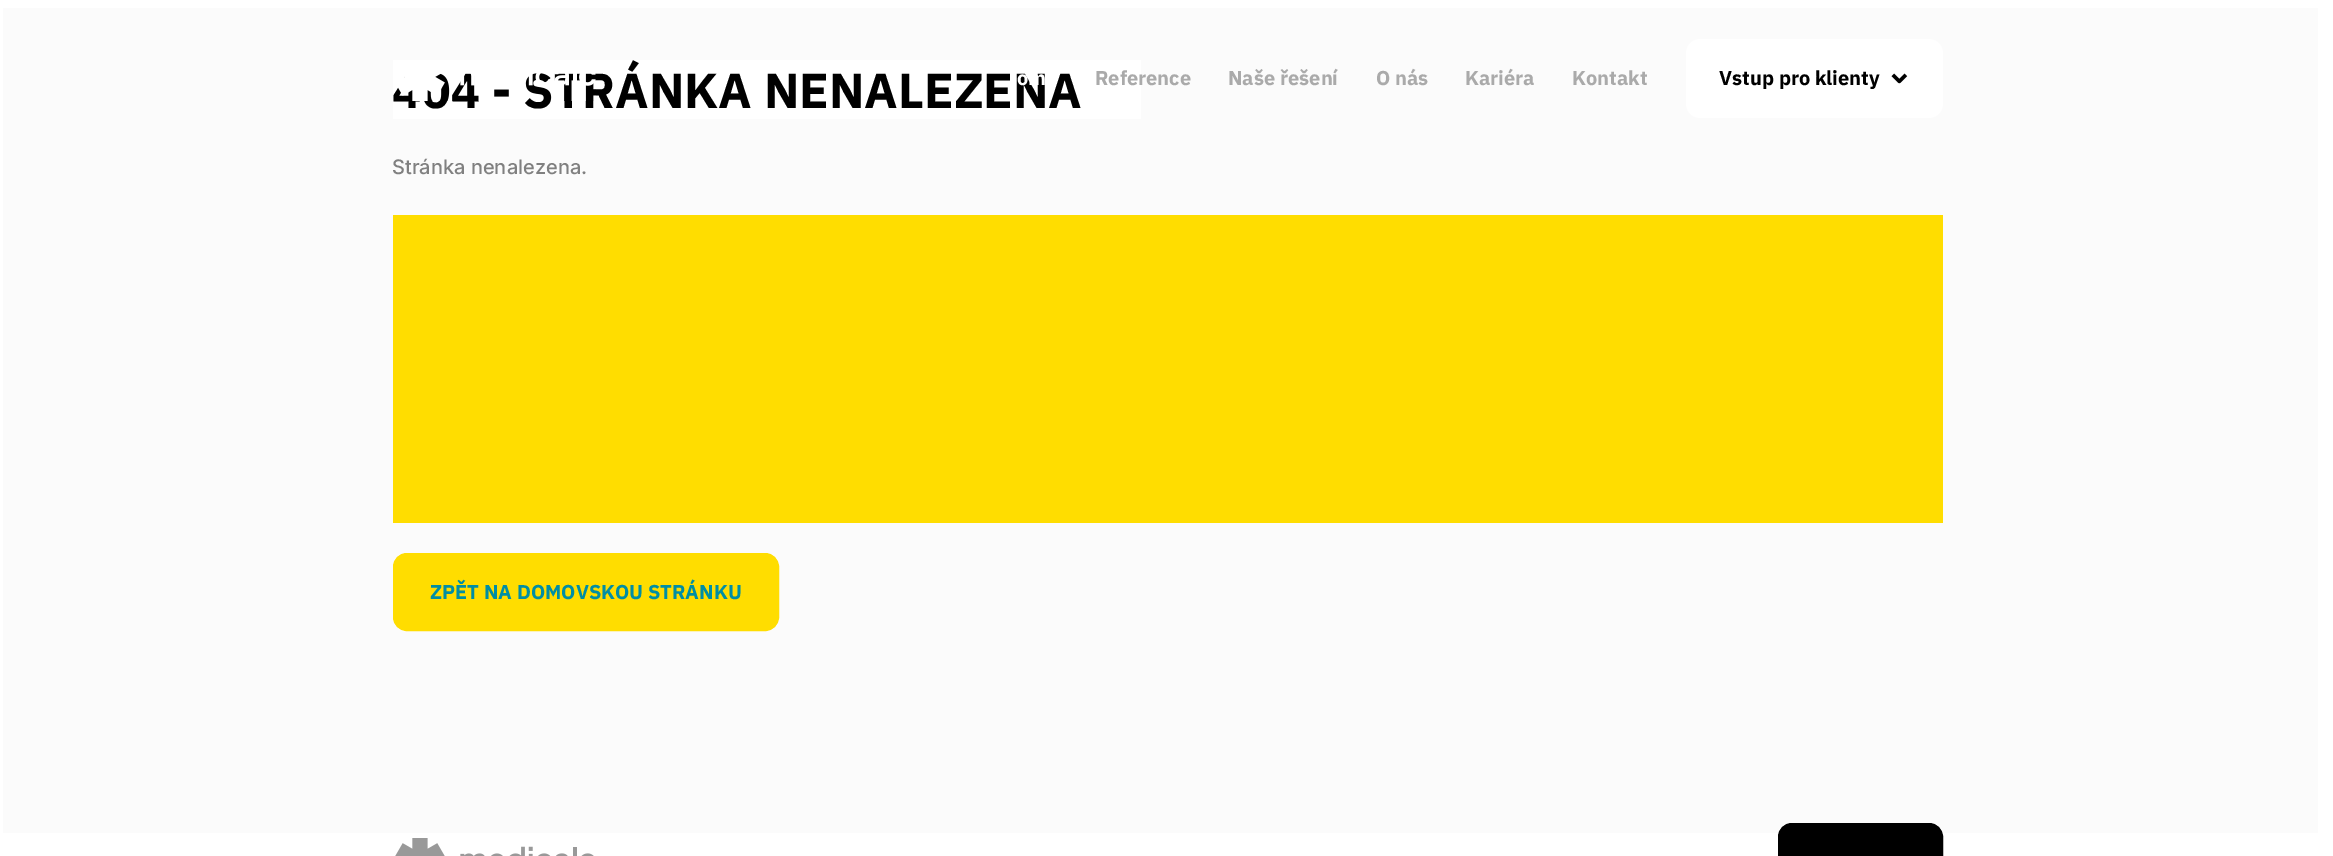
%!PS-Adobe-3.0
%%BoundingBox: 0 0 2333 856
%%LanguageLevel: 3
%%Pages: 1
%%EndComments
%%BeginProlog
/setink { 3 { 255 div 3 1 roll } repeat setrgbcolor } def
/usefont { [ exch dup neg 0 0 3 -1 roll 0 0 ] selectfont } def
/drawtext { setink usefont moveto show } def
/fillbox { setink rectfill } def
/rrect { 5 dict begin { /r /h /w /y /x } { exch def } forall
  x r add y moveto x w add y 2 copy h add r arct x w add y h add x 1 index r arct
  x y h add x y r arct x y 2 copy exch w add exch r arct closepath end } def
/drawimage { 5 dict begin { /h /w /y /x /name } { exch def } forall
  gsave x y translate w h scale
  w h 8 [w 0 0 h 0 0] name (r) file false 3 colorimage grestore end } def
%%EndProlog
%%BeginSetup
<< /PageSize [2333 856] >> setpagedevice
%%EndSetup
%%Page: 1 1
0 856 translate 1 -1 scale
4 setmiterlimit
0 0 2333 856 255 255 255 fillbox
3 8 2315 825 251 251 251 fillbox
393 60 748 59 255 255 255 fillbox
(404 - STRÁNKA NENALEZENA) 392 108 /IBMPlexSans-Bold 49 0 0 0 drawtext
(Stránka nenalezena.) 392 174 /Inter-Medium 20 128 128 128 drawtext
393 215 1550 308 255 221 0 fillbox
393.5 553.5 385 77 13.5 rrect gsave fill grestore
stroke
(ZPĚT NA DOMOVSKOU STRÁNKU) 430 599 /IBMPlexSans-Bold 20 0 142 164 drawtext
(assets/img1.rgb) 398 73 198 28 drawimage
(om) 1017 85 /IBMPlexSans-Bold 20 255 255 255 drawtext
(Reference) 1095 85 /IBMPlexSans-Bold 20 170 170 170 drawtext
(Naše řešení) 1228 85 /IBMPlexSans-Bold 20 170 170 170 drawtext
(O nás) 1376 85 /IBMPlexSans-Bold 20 170 170 170 drawtext
(Kariéra) 1465 85 /IBMPlexSans-Bold 20 170 170 170 drawtext
(Kontakt) 1572 85 /IBMPlexSans-Bold 20 170 170 170 drawtext
255 255 255 setink
1686 39 257 79 14 rrect fill
(Vstup pro klienty) 1719 85 /IBMPlexSans-Bold 20 0 0 0 drawtext
(assets/img2.rgb) 1891 73 17 11 drawimage
(assets/img3.rgb) 395 838 199 18 drawimage
1778.5 823.5 164 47 13.5 rrect gsave fill grestore
stroke
showpage
%%EOF
